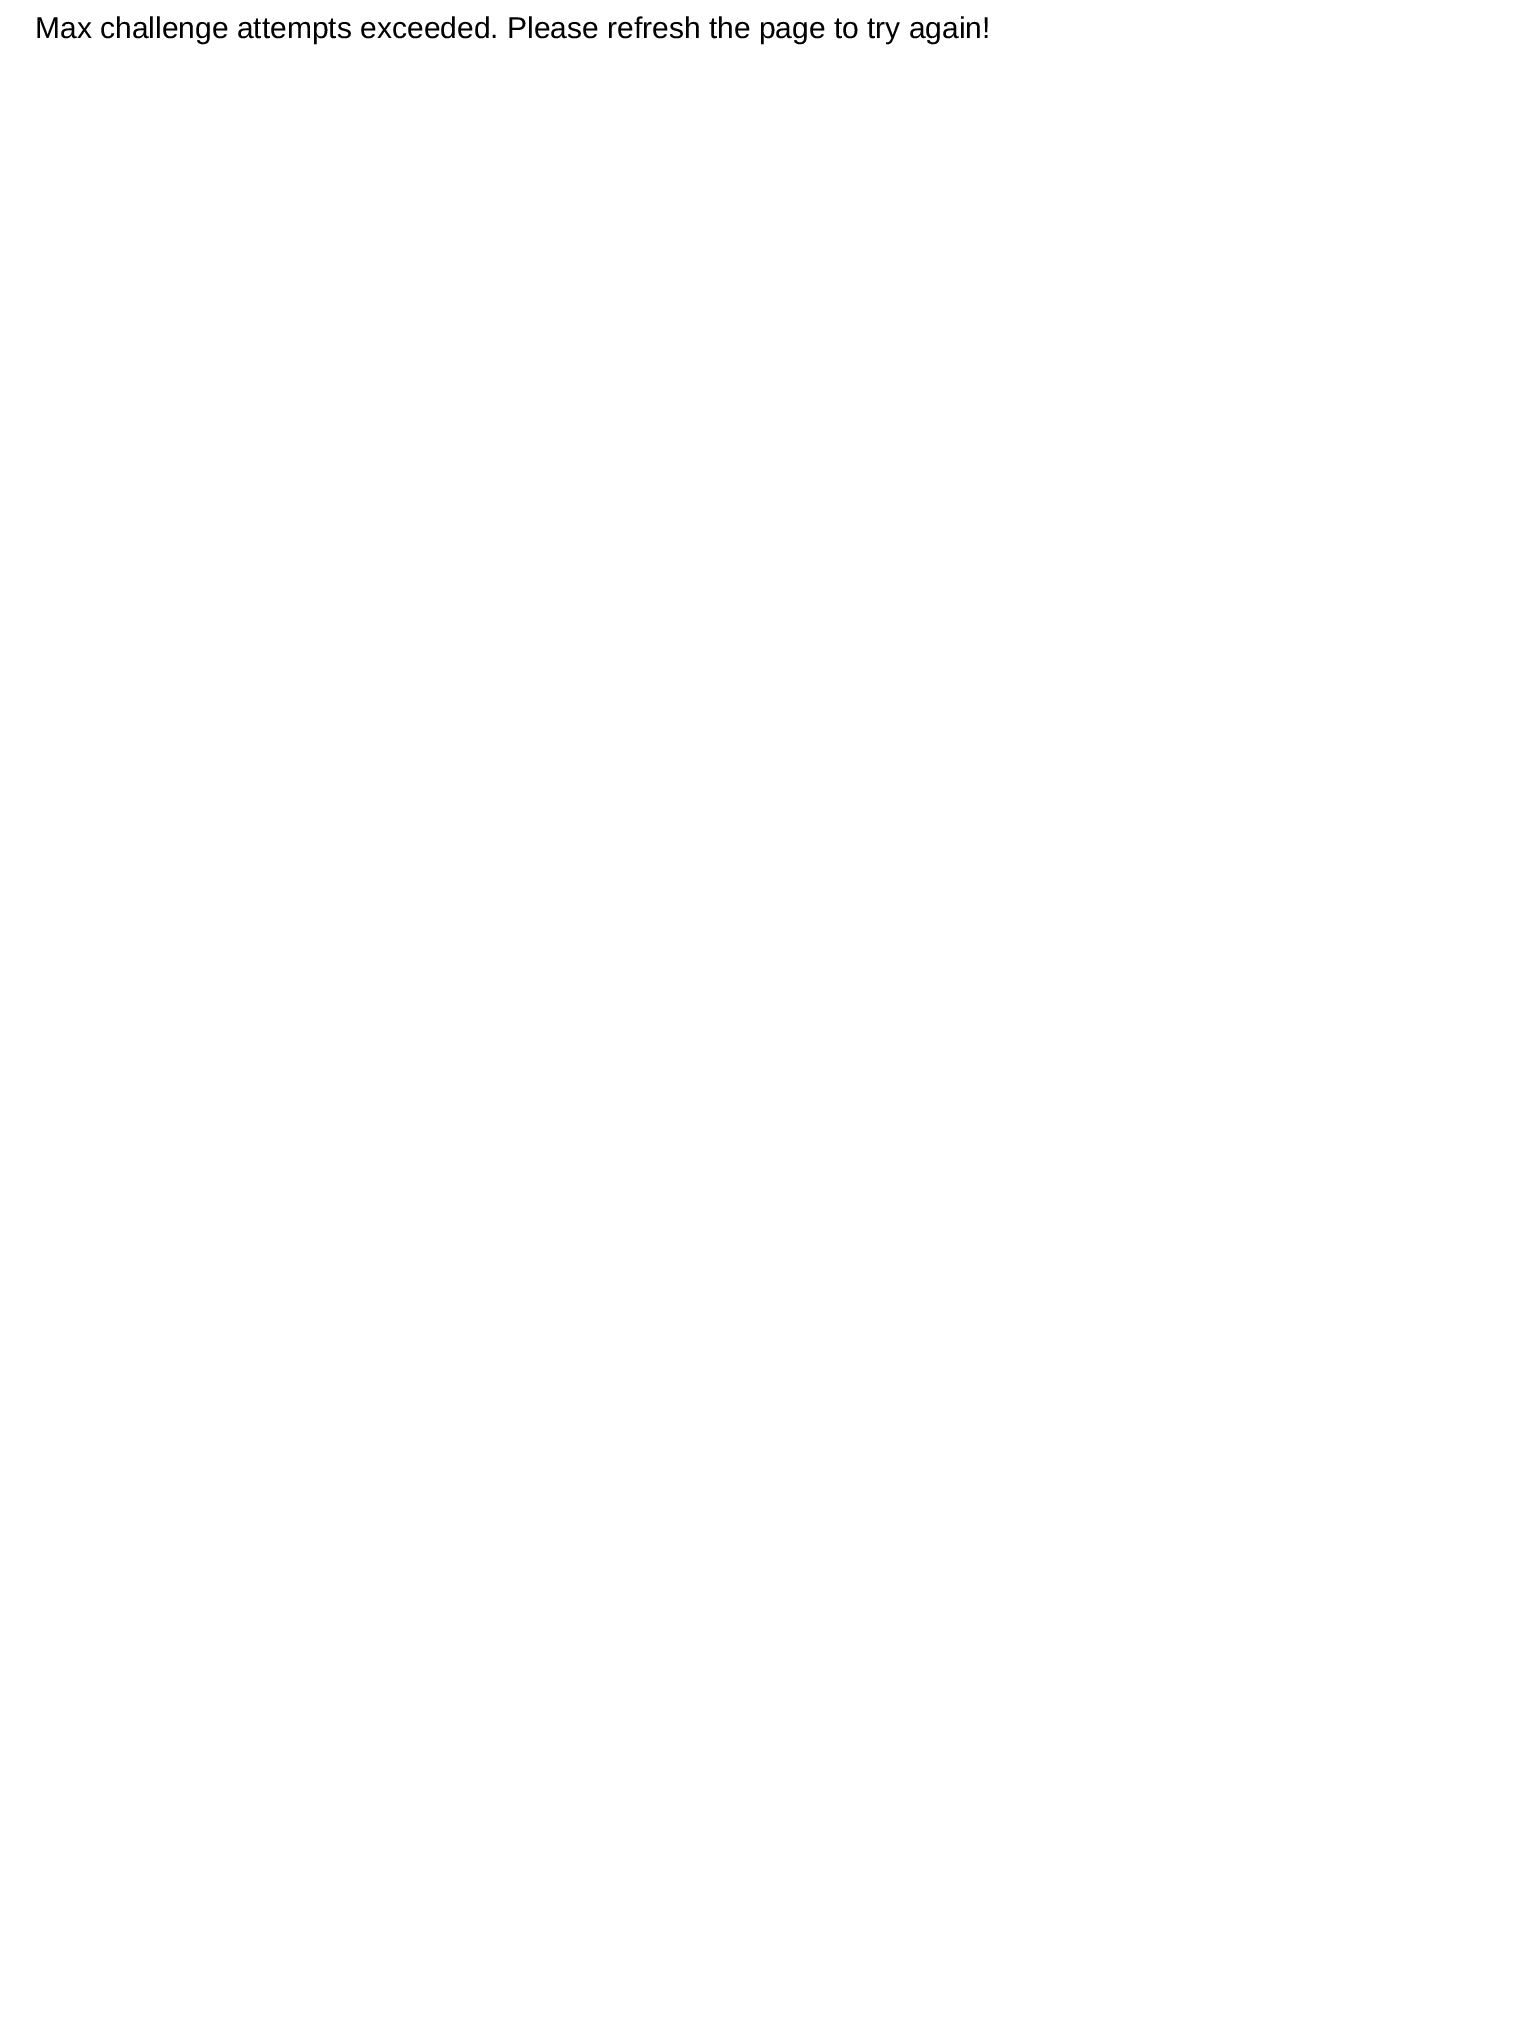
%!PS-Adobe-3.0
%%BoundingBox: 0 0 1536 2027
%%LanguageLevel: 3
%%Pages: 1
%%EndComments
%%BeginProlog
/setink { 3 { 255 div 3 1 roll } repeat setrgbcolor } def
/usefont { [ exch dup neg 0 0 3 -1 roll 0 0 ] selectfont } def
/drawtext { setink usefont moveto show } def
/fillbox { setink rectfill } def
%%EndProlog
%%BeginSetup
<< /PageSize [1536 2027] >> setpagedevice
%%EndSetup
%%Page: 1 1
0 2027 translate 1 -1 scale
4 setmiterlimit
0 0 1536 2027 255 255 255 fillbox
(Max challenge attempts exceeded. Please refresh the page to try again!) 35 38 /LiberationSans-Regular 30 0 0 0 drawtext
showpage
%%EOF
